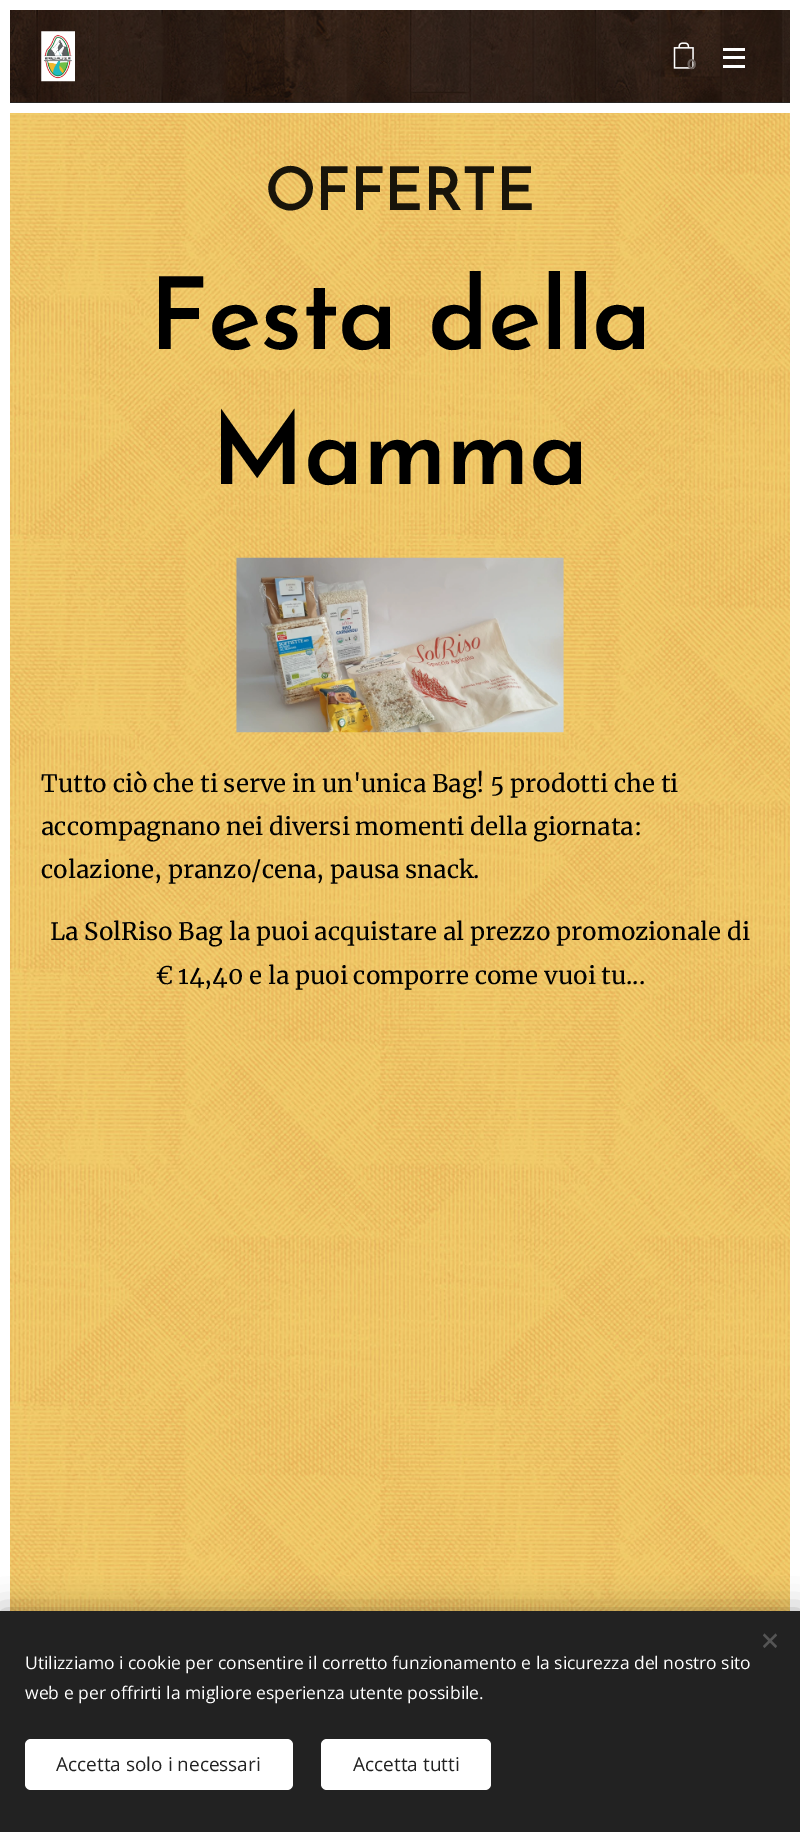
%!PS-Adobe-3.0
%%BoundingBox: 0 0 800 1832
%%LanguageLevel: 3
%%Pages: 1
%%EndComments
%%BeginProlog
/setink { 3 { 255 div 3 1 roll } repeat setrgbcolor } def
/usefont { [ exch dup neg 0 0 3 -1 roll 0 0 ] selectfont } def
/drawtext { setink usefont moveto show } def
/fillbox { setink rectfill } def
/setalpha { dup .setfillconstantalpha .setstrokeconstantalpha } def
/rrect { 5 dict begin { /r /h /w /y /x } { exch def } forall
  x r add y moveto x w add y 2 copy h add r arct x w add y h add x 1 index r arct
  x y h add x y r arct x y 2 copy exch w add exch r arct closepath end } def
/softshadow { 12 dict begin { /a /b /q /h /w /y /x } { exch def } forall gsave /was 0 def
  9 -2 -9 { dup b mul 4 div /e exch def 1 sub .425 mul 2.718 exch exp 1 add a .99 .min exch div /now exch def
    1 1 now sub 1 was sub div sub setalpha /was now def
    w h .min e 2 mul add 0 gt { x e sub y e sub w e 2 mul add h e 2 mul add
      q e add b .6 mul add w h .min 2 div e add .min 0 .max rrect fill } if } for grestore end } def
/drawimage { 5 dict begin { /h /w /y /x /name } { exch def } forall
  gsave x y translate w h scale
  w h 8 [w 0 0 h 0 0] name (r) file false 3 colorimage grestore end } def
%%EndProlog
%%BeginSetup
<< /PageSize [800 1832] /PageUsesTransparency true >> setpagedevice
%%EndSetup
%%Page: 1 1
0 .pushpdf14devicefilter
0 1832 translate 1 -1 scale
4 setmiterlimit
0 0 800 1832 255 255 255 fillbox
10 102 780 1 39 39 39 fillbox
(assets/img1.rgb) 10 10 780 93 drawimage
(assets/img2.rgb) 41 31 34 51 drawimage
(assets/img3.rgb) 673 42 21 27 drawimage
(0) 687 69 /Montserrat-Bold 14 107 96 90 drawtext
723 56 22 3 255 255 255 fillbox
723 48 22 3 255 255 255 fillbox
723 65 22 3 255 255 255 fillbox
(assets/img4.rgb) 10 113 780 1498 drawimage
/JosefinSans-SemiBold 60 usefont
24 20 10 setink
265 210 moveto -1 0 (OFFERTE) ashow
/JosefinSans-SemiBold 100 usefont
0 0 0 setink
149 349 moveto -0.75 0 (Festa della) ashow
211 484 moveto -0.75 0 (Mamma) ashow
(assets/img5.rgb) 236 557 328 176 drawimage
(Tutto ciò che ti serve in un'unica Bag! 5 prodotti che ti) 41 792 /Merriweather-Regular 24 0 0 0 drawtext
(accompagnano nei diversi momenti della giornata:) 41 835 /Merriweather-Regular 24 0 0 0 drawtext
(colazione, pranzo/cena, pausa snack.) 41 878 /Merriweather-Regular 24 0 0 0 drawtext
(La SolRiso Bag la puoi acquistare al prezzo promozionale di) 50 940 /Merriweather-Regular 24 0 0 0 drawtext
(€ 14,40 e la puoi comporre come vuoi tu...) 156 984 /Merriweather-Regular 24 0 0 0 drawtext
0 1611 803 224 0 15.5 0.33 softshadow
0 1611 800 221 34 34 34 fillbox
85 85 85 setink
763 1646 moveto 775.5 1633.5 lineto 777 1635.5 lineto 764.5 1648 lineto closepath fill
764.5 1633.5 moveto 777 1646 lineto 775.5 1648 lineto 763 1635.5 lineto closepath fill
(Utilizziamo i cookie per consentire il corretto funzionamento e la sicurezza del nostro sito) 25 1669 /OpenSans-Regular 17.5 255 255 255 drawtext
(web e per offrirti la migliore esperienza utente possibile.) 25 1699 /OpenSans-Regular 17.5 255 255 255 drawtext
25 1739 268 51 6 rrect fill
(Accetta solo i necessari) 56 1771 /OpenSans-Regular 19 34 34 34 drawtext
255 255 255 setink
321 1739 170 51 6 rrect fill
(Accetta tutti) 353 1771 /OpenSans-Regular 19 34 34 34 drawtext
.poppdf14devicefilter showpage
%%EOF
